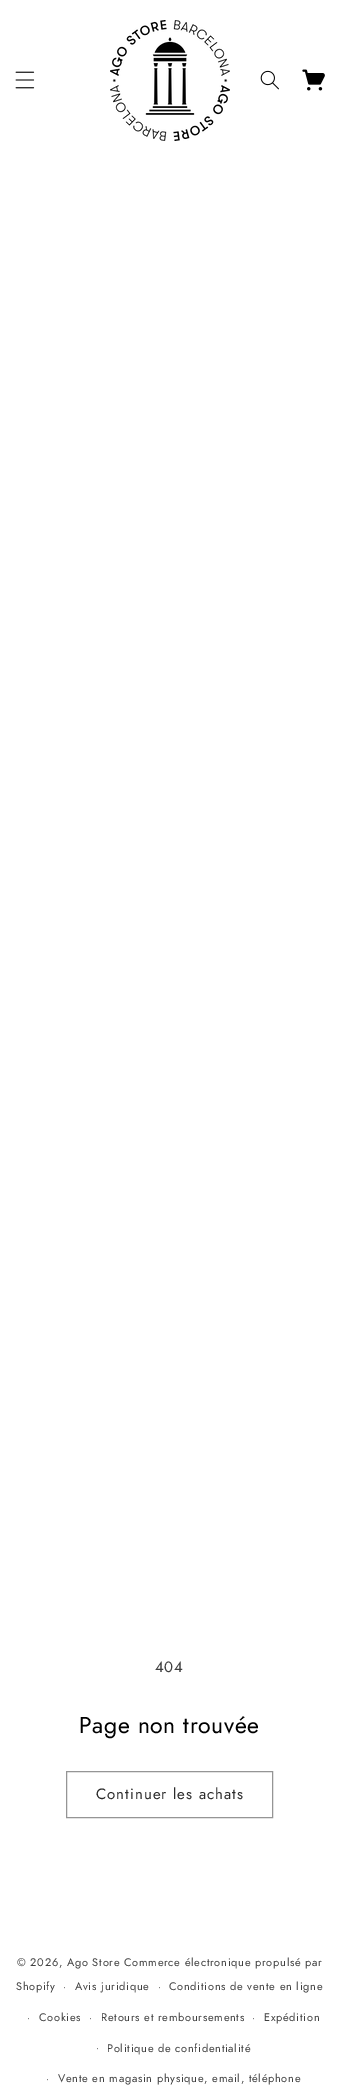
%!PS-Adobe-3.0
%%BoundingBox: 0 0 339 2094
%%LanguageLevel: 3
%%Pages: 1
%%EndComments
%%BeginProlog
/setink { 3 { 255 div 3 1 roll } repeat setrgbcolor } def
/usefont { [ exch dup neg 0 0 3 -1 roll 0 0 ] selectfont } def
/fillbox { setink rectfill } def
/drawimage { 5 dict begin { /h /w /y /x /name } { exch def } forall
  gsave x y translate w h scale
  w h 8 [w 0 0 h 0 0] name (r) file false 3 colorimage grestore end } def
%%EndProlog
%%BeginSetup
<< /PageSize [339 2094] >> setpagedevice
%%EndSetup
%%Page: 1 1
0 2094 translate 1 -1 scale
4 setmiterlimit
0 0 339 2094 255 255 255 fillbox
(assets/img1.rgb) 15 71 20 18 drawimage
(assets/img2.rgb) 110 20 120 121 drawimage
(assets/img3.rgb) 260 70 19 20 drawimage
(assets/img4.rgb) 302 69 23 22 drawimage
/Jost-Regular 15 usefont
64 64 64 setink
155 1672 moveto 0.6 0 (404) ashow
/Jost-Regular 23 usefont
0 0 0 setink
79 1733 moveto 0.6 0 (Page non trouvée) ashow
149 149 149 setink
66.5 1771.5 206 46 rectstroke
/Jost-Regular 15 usefont
43 43 43 setink
96 1799 moveto 1 0 (Continuer les achats) ashow
/Jost-Regular 11 usefont
64 64 64 setink
17 1966 moveto 0.7 0 (© 2026, Ago Store Commerce électronique propulsé par) ashow
16 1990 moveto 0.7 0 (Shopify) ashow
/Jost-Regular 10 usefont
63 1990 moveto 0.7 0 (·) ashow
/Jost-Regular 11 usefont
75 1990 moveto 0.7 0 (Avis juridique) ashow
/Jost-Regular 10 usefont
158 1990 moveto 0.7 0 (·) ashow
/Jost-Regular 11 usefont
169 1990 moveto 0.7 0 (Conditions de vente en ligne) ashow
/Jost-Regular 10 usefont
27 2021 moveto 0.7 0 (·) ashow
/Jost-Regular 11 usefont
39 2021 moveto 0.7 0 (Cookies) ashow
/Jost-Regular 10 usefont
89 2021 moveto 0.7 0 (·) ashow
/Jost-Regular 11 usefont
101 2021 moveto 0.7 0 (Retours et remboursements) ashow
/Jost-Regular 10 usefont
252 2021 moveto 0.7 0 (·) ashow
/Jost-Regular 11 usefont
264 2021 moveto 0.7 0 (Expédition) ashow
/Jost-Regular 10 usefont
96 2051 moveto 0.7 0 (·) ashow
/Jost-Regular 11 usefont
107 2052 moveto 0.7 0 (Politique de confidentialité) ashow
/Jost-Regular 10 usefont
46 2082 moveto 0.7 0 (·) ashow
/Jost-Regular 11 usefont
58 2082 moveto 0.7 0 (Vente en magasin physique, email, téléphone) ashow
showpage
%%EOF
